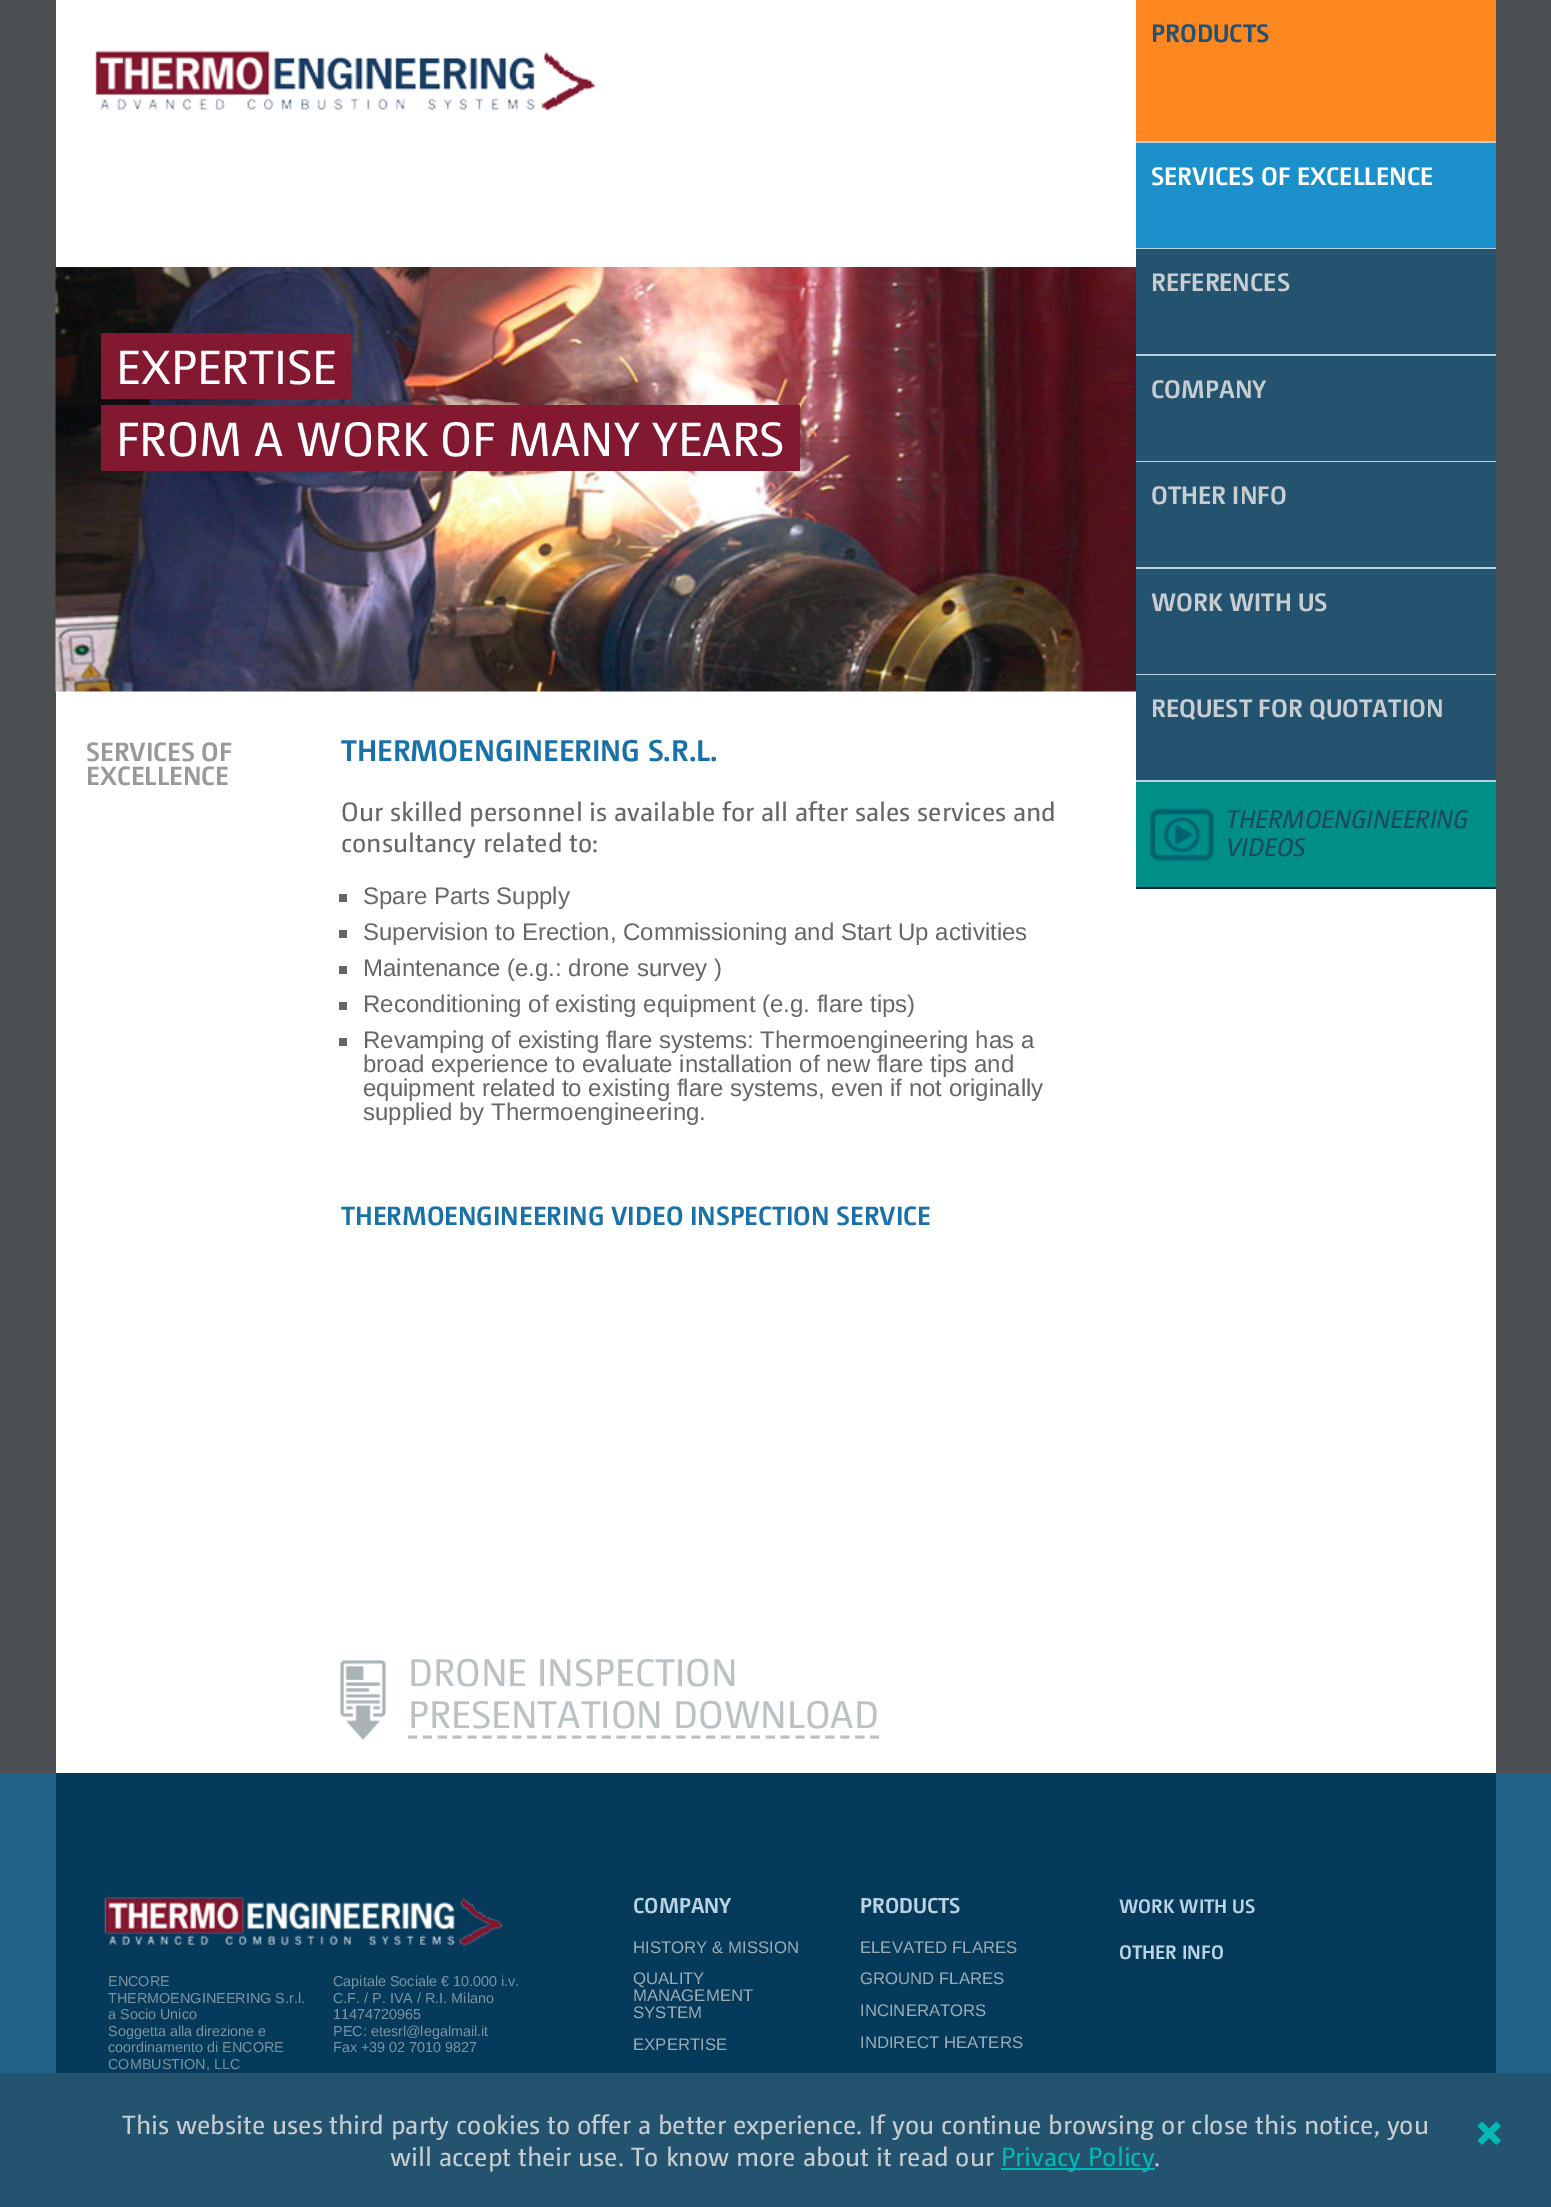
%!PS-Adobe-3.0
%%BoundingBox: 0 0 1551 2207
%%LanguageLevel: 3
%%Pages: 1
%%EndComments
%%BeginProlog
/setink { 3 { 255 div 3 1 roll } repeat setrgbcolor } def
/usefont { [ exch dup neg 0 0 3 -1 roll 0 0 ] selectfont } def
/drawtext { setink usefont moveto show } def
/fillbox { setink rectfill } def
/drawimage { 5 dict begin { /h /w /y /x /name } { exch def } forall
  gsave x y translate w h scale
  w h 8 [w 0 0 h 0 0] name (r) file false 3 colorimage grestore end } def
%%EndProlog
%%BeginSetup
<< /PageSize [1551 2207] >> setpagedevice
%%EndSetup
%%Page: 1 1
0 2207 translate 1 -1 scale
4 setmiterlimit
0 0 1551 2207 35 98 137 fillbox
0 0 1551 1773 76 79 81 fillbox
56 0 1440 1773 255 255 255 fillbox
(assets/img1.rgb) 55 267 1081 425 drawimage
101 333 250 66 131 24 49 fillbox
(EXPERTISE) 116 384 /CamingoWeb-Regular 48 255 255 255 drawtext
101 405 699 66 131 24 49 fillbox
(FROM A WORK OF MANY YEARS) 116 456 /CamingoWeb-Regular 48 255 255 255 drawtext
(SERVICES OF) 86 761 /CamingoWeb-Bold 26.4 153 153 153 drawtext
(EXCELLENCE) 86 785 /CamingoWeb-Bold 26.4 153 153 153 drawtext
(THERMOENGINEERING S.R.L.) 341 761 /CamingoWeb-Bold 30 26 113 168 drawtext
(Our skilled personnel is available for all after sales services and) 341 821 /CamingoWeb-Regular 26.4 102 102 102 drawtext
(consultancy related to:) 341 852 /CamingoWeb-Regular 26.4 102 102 102 drawtext
339 894 8 8 102 102 102 fillbox
(Spare Parts Supply) 363 904 /LiberationSans-Regular 24 102 102 102 drawtext
339 930 8 8 102 102 102 fillbox
(Supervision to Erection, Commissioning and Start Up activities) 363 940 /LiberationSans-Regular 24 102 102 102 drawtext
339 966 8 8 102 102 102 fillbox
(Maintenance \(e.g.: drone survey \)) 363 976 /LiberationSans-Regular 24 102 102 102 drawtext
339 1002 8 8 102 102 102 fillbox
(Reconditioning of existing equipment \(e.g. flare tips\)) 363 1012 /LiberationSans-Regular 24 102 102 102 drawtext
339 1038 8 8 102 102 102 fillbox
(Revamping of existing flare systems: Thermoengineering has a) 363 1048 /LiberationSans-Regular 24 102 102 102 drawtext
(broad experience to evaluate installation of new flare tips and) 363 1072 /LiberationSans-Regular 24 102 102 102 drawtext
(equipment related to existing flare systems, even if not originally) 363 1096 /LiberationSans-Regular 24 102 102 102 drawtext
(supplied by Thermoengineering.) 363 1120 /LiberationSans-Regular 24 102 102 102 drawtext
(THERMOENGINEERING VIDEO INSPECTION SERVICE) 341 1225 /CamingoWeb-Bold 26.4 26 113 168 drawtext
(assets/img2.rgb) 340 1660 46 80 drawimage
187 194 197 setink
3 setlinewidth
[9 5.91] 0 setdash
408 1737 moveto 879 1737 lineto stroke
(DRONE INSPECTION) 408 1686 /CamingoWeb-Regular 38.4 187 194 197 drawtext
(PRESENTATION DOWNLOAD) 408 1728 /CamingoWeb-Regular 38.4 187 194 197 drawtext
(assets/img3.rgb) 95 50 501 61 drawimage
1136 0 360 141 255 135 32 fillbox
(PRODUCTS) 1151 42 /CamingoWeb-Bold 25.25 33 82 113 drawtext
1136 141 360 2 186 212 229 fillbox
1136 143 360 105 27 144 203 fillbox
(SERVICES OF EXCELLENCE) 1151 185 /CamingoWeb-Bold 25.25 255 255 255 drawtext
1136 248 360 1 186 212 229 fillbox
1136 249 360 105 36 83 112 fillbox
(REFERENCES) 1151 291 /CamingoWeb-Bold 25.25 200 205 209 drawtext
1136 354 360 2 186 212 229 fillbox
1136 356 360 105 36 83 112 fillbox
(COMPANY) 1151 398 /CamingoWeb-Bold 25.25 200 205 209 drawtext
1136 461 360 1 186 212 229 fillbox
1136 462 360 105 36 83 112 fillbox
(OTHER INFO) 1151 504 /CamingoWeb-Bold 25.25 200 205 209 drawtext
1136 567 360 2 186 212 229 fillbox
1136 569 360 105 36 83 112 fillbox
(WORK WITH US) 1151 611 /CamingoWeb-Bold 25.25 200 205 209 drawtext
1136 674 360 1 186 212 229 fillbox
1136 675 360 105 36 83 112 fillbox
(REQUEST FOR QUOTATION) 1151 717 /CamingoWeb-Bold 25.25 200 205 209 drawtext
1136 780 360 2 186 212 229 fillbox
1136 887 360 2 18 42 56 fillbox
1136 782 360 105 0 142 137 fillbox
(assets/img4.rgb) 1150 808 64 54 drawimage
(THERMOENGINEERING) 1226 828 /CamingoWeb-Italic 25.25 29 71 97 drawtext
(VIDEOS) 1226 856 /CamingoWeb-Italic 25.25 29 71 97 drawtext
56 1773 1440 300 5 58 91 fillbox
(assets/img5.rgb) 104 1897 400 50 drawimage
(ENCORE) 108 1986 /LiberationSans-Regular 14.4 121 148 165 drawtext
(THERMOENGINEERING S.r.l.) 108 2003 /LiberationSans-Regular 14.4 121 148 165 drawtext
(a Socio Unico) 108 2019 /LiberationSans-Regular 14.4 121 148 165 drawtext
(Soggetta alla direzione e) 108 2036 /LiberationSans-Regular 14.4 121 148 165 drawtext
(coordinamento di ENCORE) 108 2052 /LiberationSans-Regular 14.4 121 148 165 drawtext
(COMBUSTION, LLC) 108 2069 /LiberationSans-Regular 14.4 121 148 165 drawtext
(Capitale Sociale € 10.000 i.v.) 333 1986 /LiberationSans-Regular 14.4 121 148 165 drawtext
(C.F. / P. IVA / R.I. Milano) 333 2003 /LiberationSans-Regular 14.4 121 148 165 drawtext
(11474720965) 333 2019 /LiberationSans-Regular 14.4 121 148 165 drawtext
(PEC: etesrl@legalmail.it) 333 2036 /LiberationSans-Regular 14.4 121 148 165 drawtext
(Fax +39 02 7010 9827) 333 2052 /LiberationSans-Regular 14.4 121 148 165 drawtext
(COMPANY) 633 1913 /CamingoWeb-Bold 21.5 186 212 229 drawtext
(HISTORY & MISSION) 633 1953 /LiberationSans-Regular 16.75 153 172 184 drawtext
(QUALITY) 633 1984 /LiberationSans-Regular 16.75 153 172 184 drawtext
(MANAGEMENT) 633 2001 /LiberationSans-Regular 16.75 153 172 184 drawtext
(SYSTEM) 633 2018 /LiberationSans-Regular 16.75 153 172 184 drawtext
(EXPERTISE) 633 2050 /LiberationSans-Regular 16.75 153 172 184 drawtext
(PRODUCTS) 860 1913 /CamingoWeb-Bold 21.5 186 212 229 drawtext
(ELEVATED FLARES) 860 1953 /LiberationSans-Regular 16.75 153 172 184 drawtext
(GROUND FLARES) 860 1984 /LiberationSans-Regular 16.75 153 172 184 drawtext
(INCINERATORS) 860 2016 /LiberationSans-Regular 16.75 153 172 184 drawtext
(INDIRECT HEATERS) 860 2048 /LiberationSans-Regular 16.75 153 172 184 drawtext
(WORK WITH US) 1119 1913 /CamingoWeb-Bold 19.5 186 212 229 drawtext
(OTHER INFO) 1119 1959 /CamingoWeb-Bold 19.5 186 212 229 drawtext
0 2073 1551 134 36 83 112 fillbox
(This website uses third party cookies to offer a better experience. If you continue browsing or close this notice, you) 122 2134 /CamingoWeb-Regular 26.4 200 205 209 drawtext
(assets/img6.rgb) 1477 2121 24 24 drawimage
(will accept their use. To know more about it read our) 390 2166 /CamingoWeb-Regular 26.4 200 205 209 drawtext
1001 2168 154 2 2 186 179 fillbox
(Privacy Policy) 1001 2166 /CamingoWeb-Regular 26.4 2 186 179 drawtext
(.) 1154 2166 /CamingoWeb-Regular 26.4 200 205 209 drawtext
showpage
%%EOF
